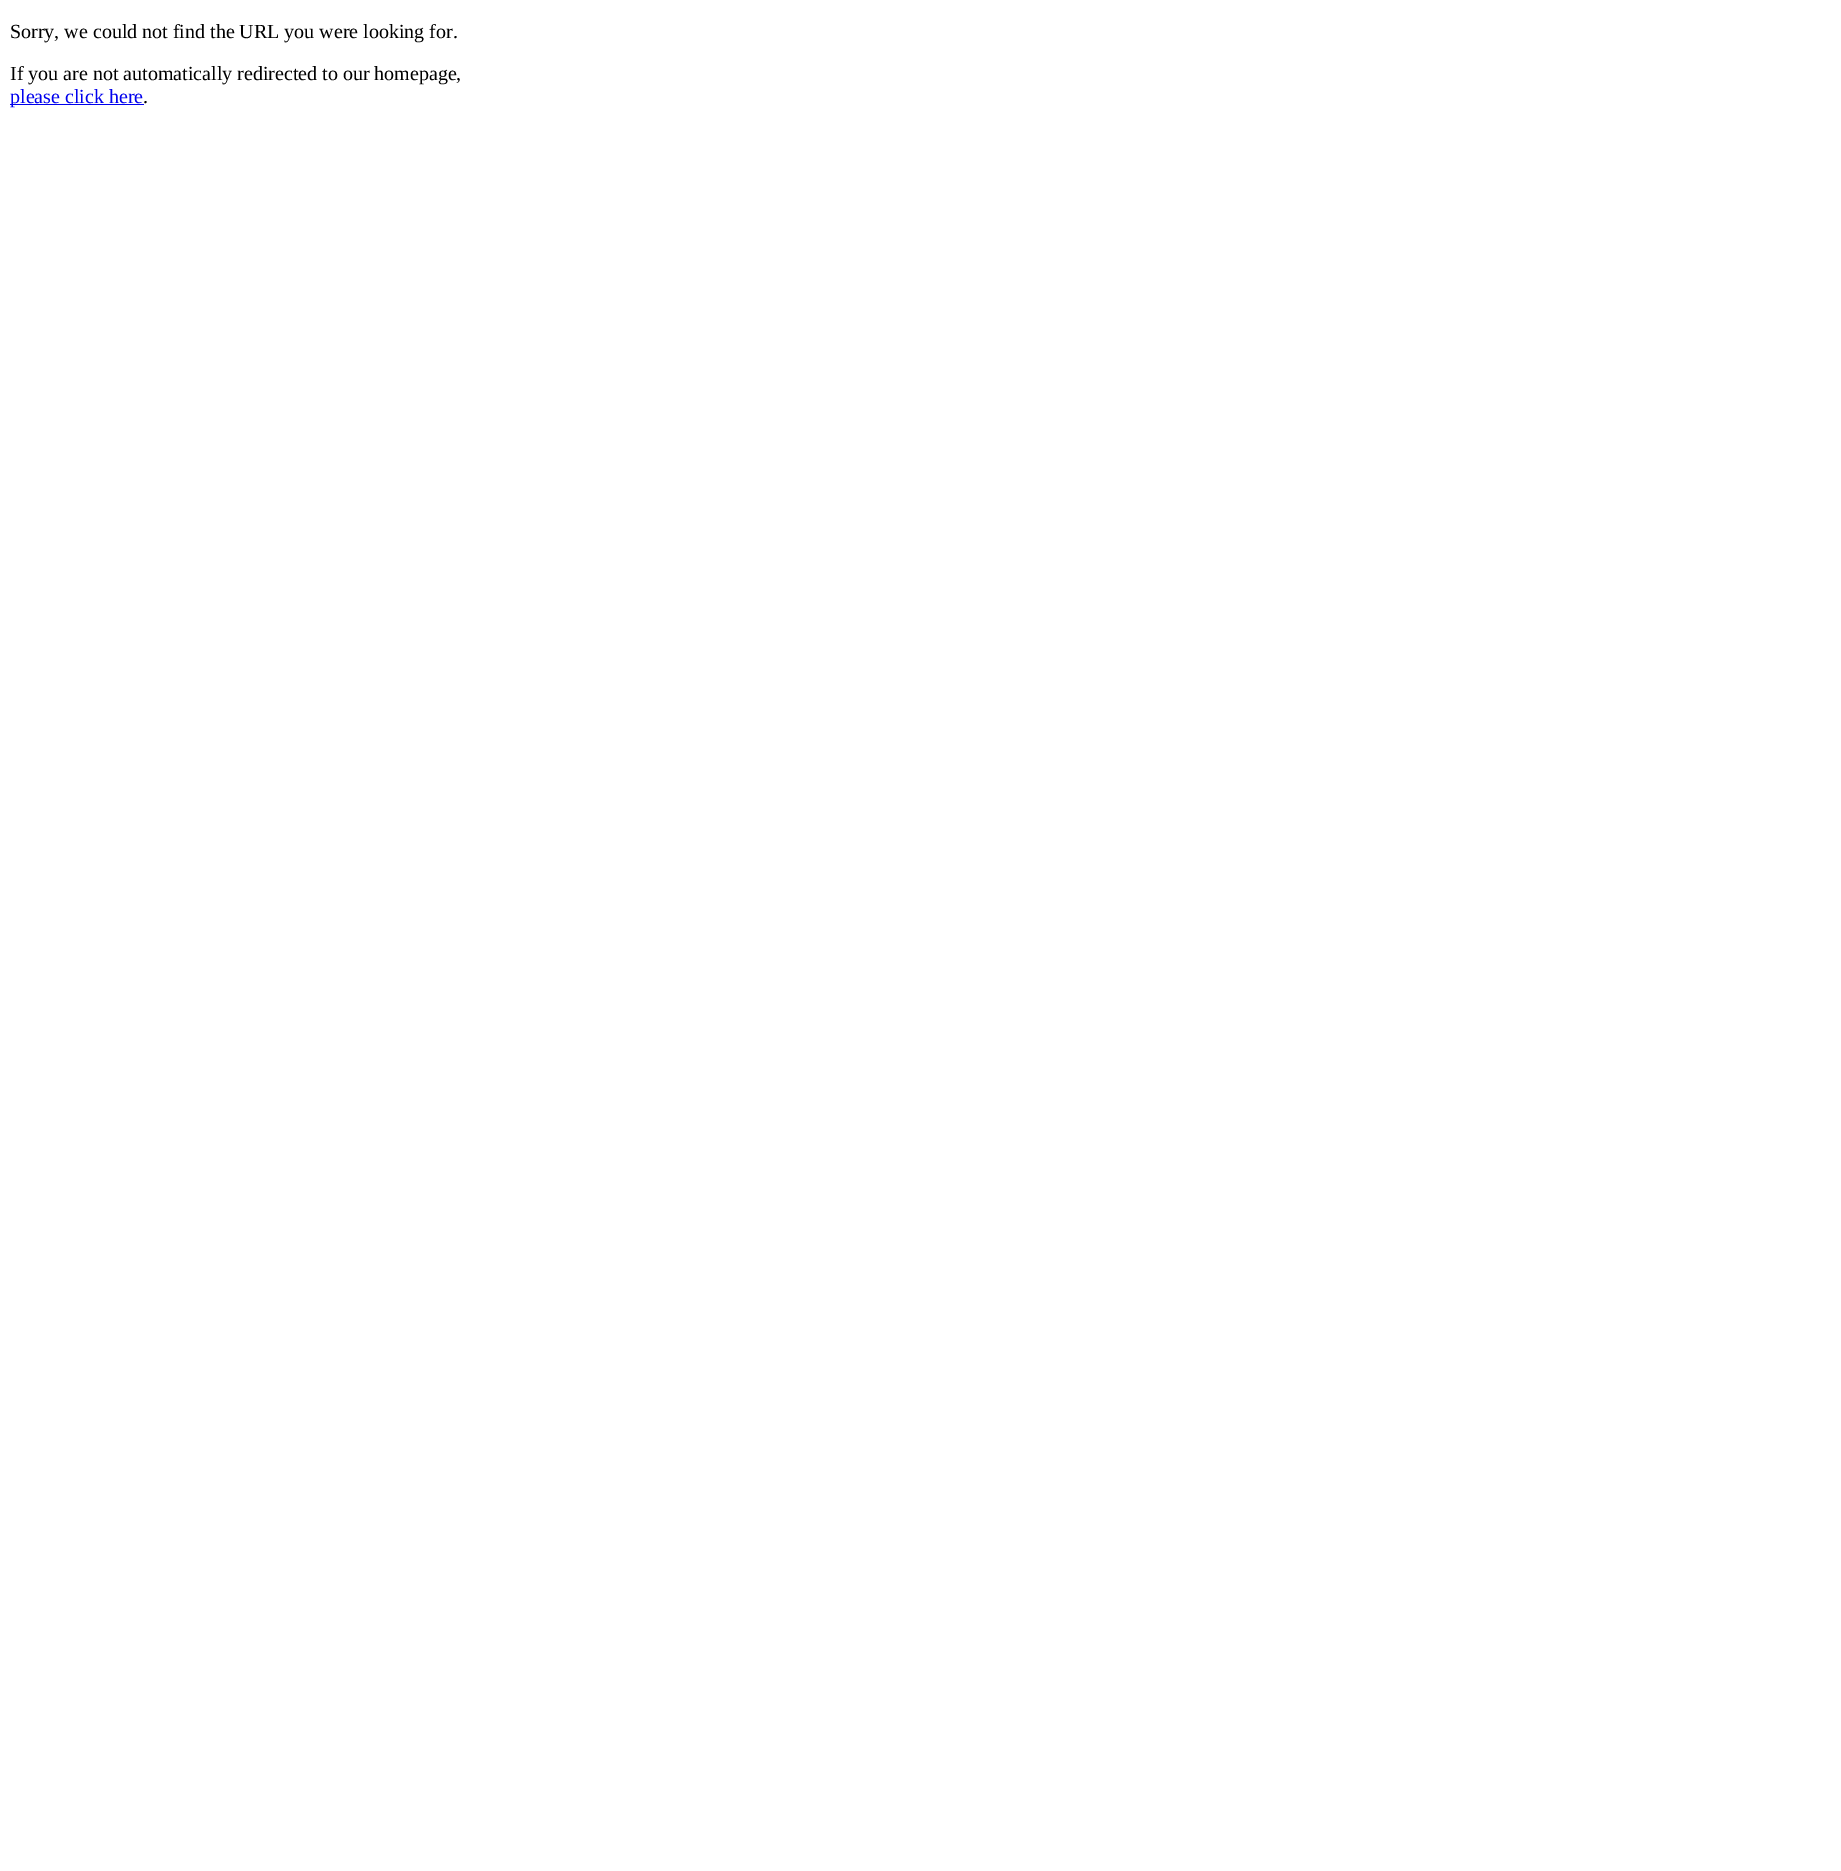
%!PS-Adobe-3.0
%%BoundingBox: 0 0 1841 1871
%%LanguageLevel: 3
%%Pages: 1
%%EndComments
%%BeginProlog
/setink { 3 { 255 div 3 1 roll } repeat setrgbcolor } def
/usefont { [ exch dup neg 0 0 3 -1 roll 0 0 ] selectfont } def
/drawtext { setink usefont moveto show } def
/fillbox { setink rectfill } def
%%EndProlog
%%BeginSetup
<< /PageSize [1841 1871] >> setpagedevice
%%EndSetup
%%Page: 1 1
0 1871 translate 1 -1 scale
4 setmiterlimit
0 0 1841 1871 255 255 255 fillbox
(Sorry, we could not find the URL you were looking for.) 10 38 /LiberationSerif-Regular 20 0 0 0 drawtext
(If you are not automatically redirected to our homepage,) 10 80 /LiberationSerif-Regular 20 0 0 0 drawtext
10 104 134 1 0 0 238 fillbox
(please click here) 10 103 /LiberationSerif-Regular 20 0 0 238 drawtext
(.) 143 103 /LiberationSerif-Regular 20 0 0 0 drawtext
showpage
%%EOF
